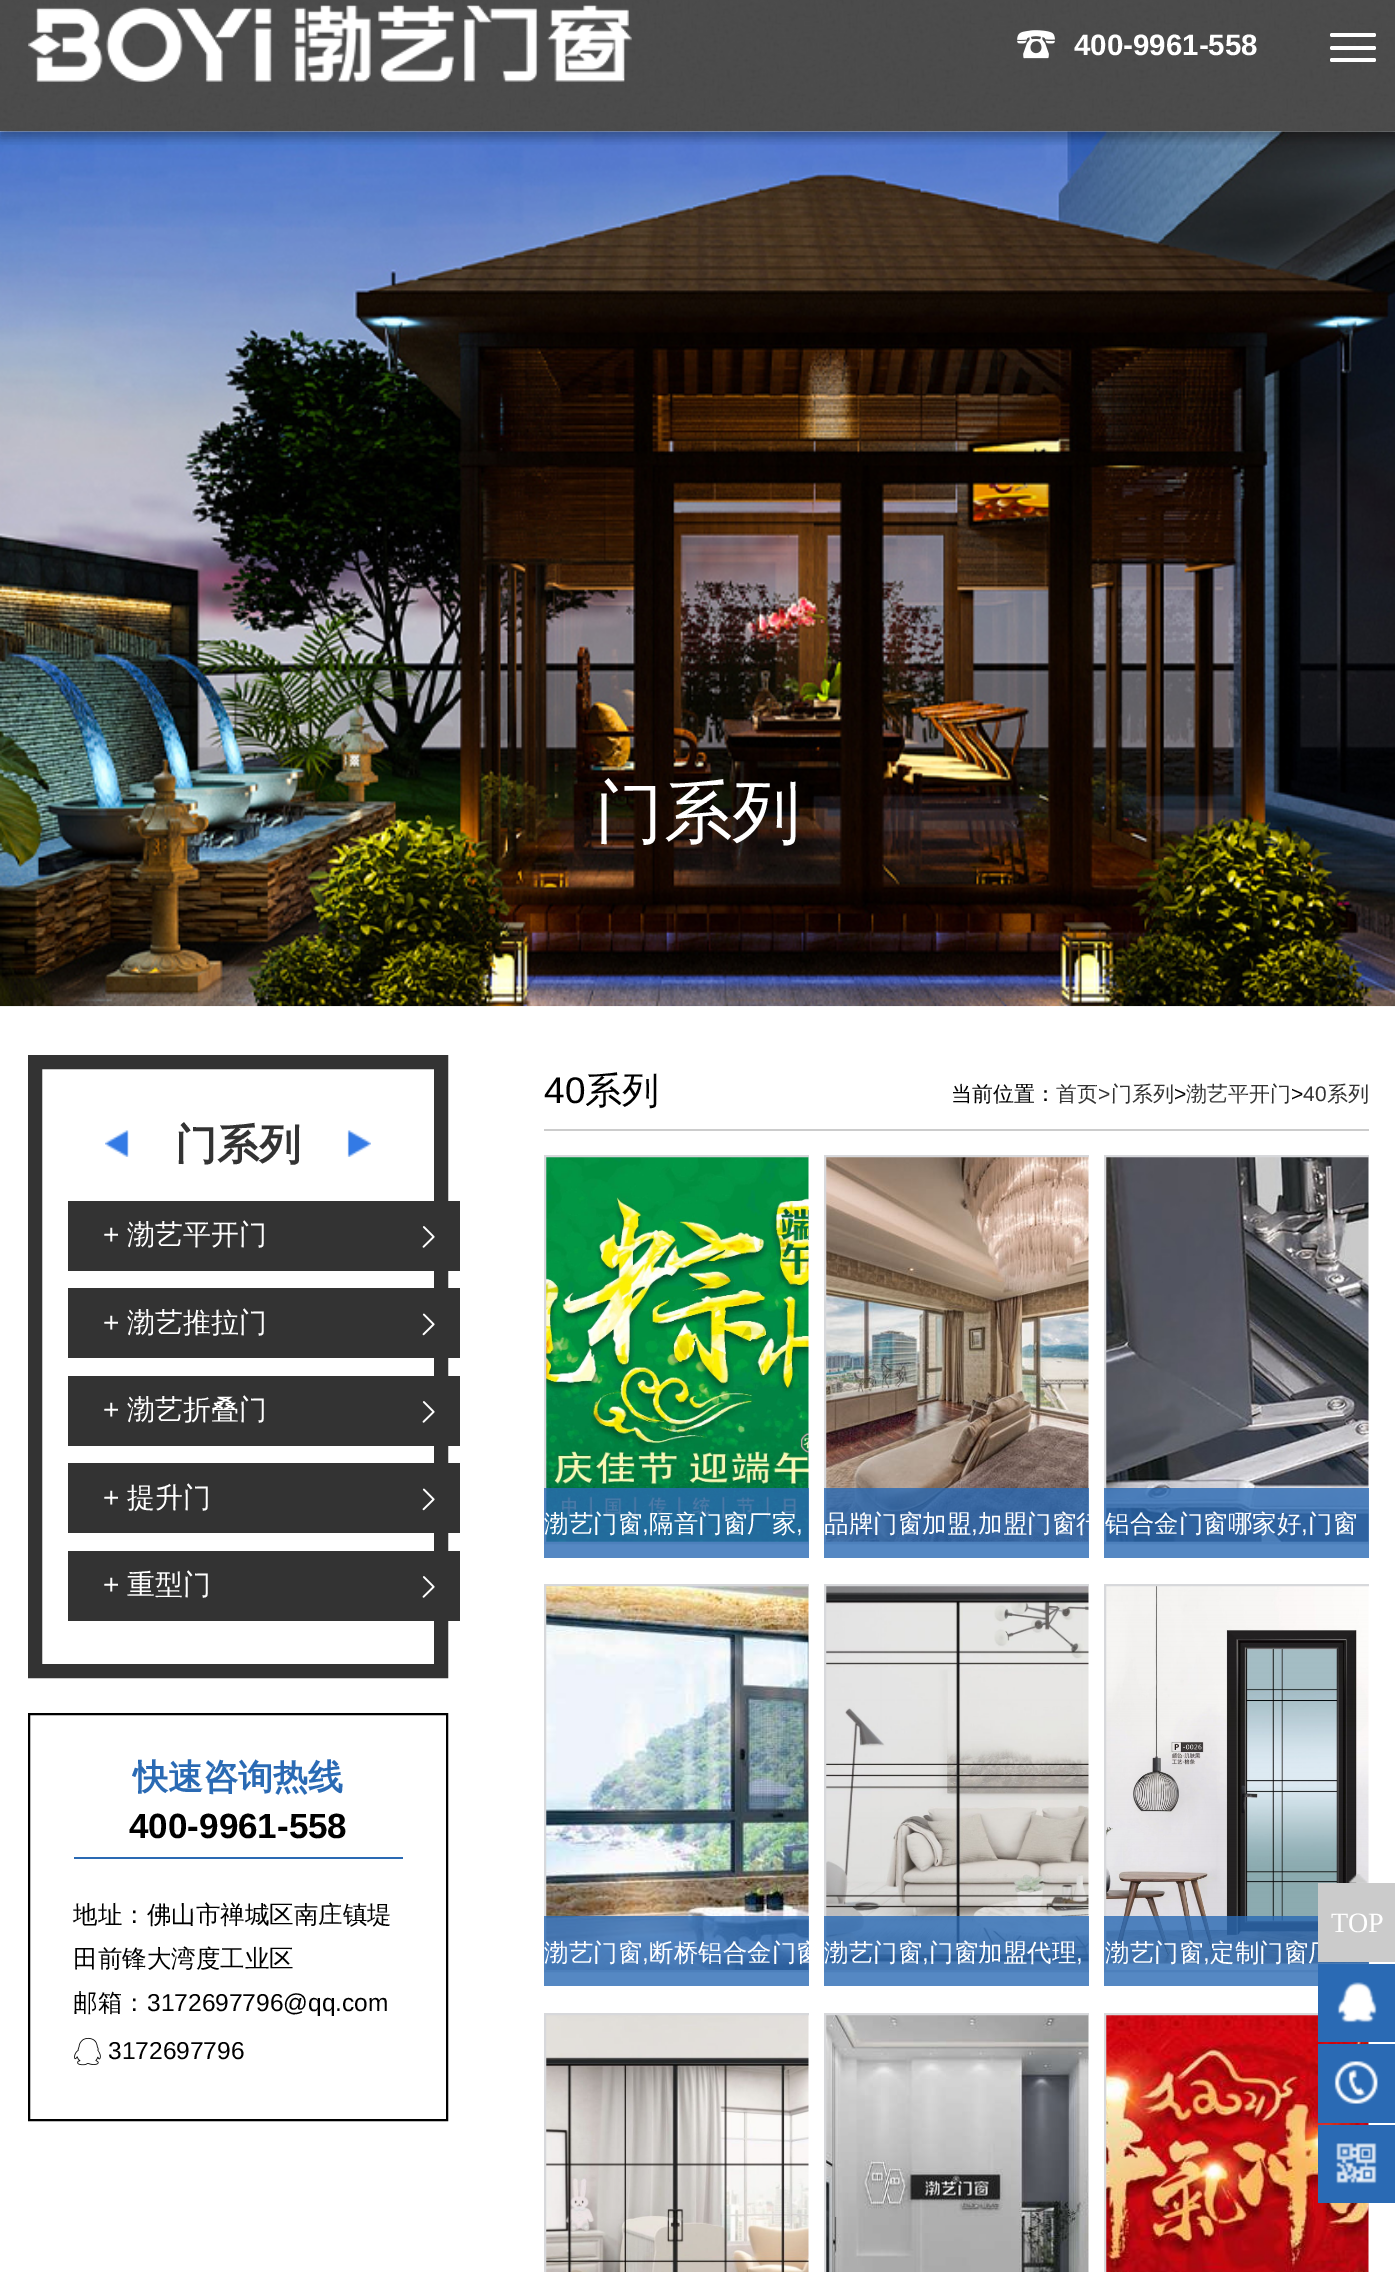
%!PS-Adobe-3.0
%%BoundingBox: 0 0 1395 2272
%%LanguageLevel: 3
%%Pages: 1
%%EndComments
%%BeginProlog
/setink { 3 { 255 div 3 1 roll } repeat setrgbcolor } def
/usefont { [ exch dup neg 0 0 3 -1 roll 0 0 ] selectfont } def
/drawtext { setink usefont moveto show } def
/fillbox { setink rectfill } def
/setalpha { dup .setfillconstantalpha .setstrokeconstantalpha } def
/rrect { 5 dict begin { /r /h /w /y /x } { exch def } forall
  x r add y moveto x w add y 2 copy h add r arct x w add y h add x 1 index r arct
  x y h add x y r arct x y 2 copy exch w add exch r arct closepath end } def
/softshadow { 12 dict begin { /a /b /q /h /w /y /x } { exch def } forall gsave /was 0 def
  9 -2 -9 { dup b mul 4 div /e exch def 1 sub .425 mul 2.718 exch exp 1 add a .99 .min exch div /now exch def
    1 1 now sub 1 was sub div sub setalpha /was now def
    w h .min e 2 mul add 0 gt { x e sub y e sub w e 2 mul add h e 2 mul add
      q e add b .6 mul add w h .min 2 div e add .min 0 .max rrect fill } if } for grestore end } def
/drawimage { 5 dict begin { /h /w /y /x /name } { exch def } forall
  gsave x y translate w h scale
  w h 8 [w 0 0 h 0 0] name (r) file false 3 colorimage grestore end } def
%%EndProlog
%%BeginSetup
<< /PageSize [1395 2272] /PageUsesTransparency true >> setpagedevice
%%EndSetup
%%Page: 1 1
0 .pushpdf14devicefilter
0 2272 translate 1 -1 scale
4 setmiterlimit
0 0 1395 2272 255 255 255 fillbox
(assets/img1.rgb) 0 0 1395 132 drawimage
(assets/img4.rgb) 0 131 1395 876 drawimage
gsave
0 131 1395 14 rectclip
0 0 0 setink
0 -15 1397 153 0 5 0.3 softshadow
grestore
0.7 setalpha
0 0 1395 131 0 0 0 fillbox
1 setalpha
(assets/img2.rgb) 28 5 604 77 drawimage
(assets/img3.rgb) 1017 30 38 29 drawimage
(400-9961-558) 1074 55 /LiberationSans-Bold 29.5 255 255 255 drawtext
1330 46 46 4 2 rrect fill
1330 33 46 4 2 rrect fill
1330 58 46 4 2 rrect fill
(门系列) 595 836 /WenQuanYiZenHei-Medium 68.5 255 255 255 drawtext
51 51 51 setink
14 setlinewidth
35 1062 406 609 rectstroke
(assets/img5.rgb) 105 1130 266 27 drawimage
(门系列) 175 1159 /WenQuanYiZenHei-Bold 42 51 51 51 drawtext
68 1201 392 70 51 51 51 fillbox
(+) 103 1244 /LiberationSans-Regular 28 255 255 255 drawtext
(渤艺平开门) 127 1244 /WenQuanYiZenHei-Medium 28 255 255 255 drawtext
(assets/img6.rgb) 422 1226 13 22 drawimage
68 1288 392 70 51 51 51 fillbox
(+) 103 1332 /LiberationSans-Regular 28 255 255 255 drawtext
(渤艺推拉门) 127 1332 /WenQuanYiZenHei-Medium 28 255 255 255 drawtext
(assets/img7.rgb) 422 1313 13 23 drawimage
68 1376 392 70 51 51 51 fillbox
(+) 103 1419 /LiberationSans-Regular 28 255 255 255 drawtext
(渤艺折叠门) 127 1419 /WenQuanYiZenHei-Medium 28 255 255 255 drawtext
(assets/img6.rgb) 422 1401 13 22 drawimage
68 1463 392 70 51 51 51 fillbox
(+) 103 1507 /LiberationSans-Regular 28 255 255 255 drawtext
(提升门) 127 1507 /WenQuanYiZenHei-Medium 28 255 255 255 drawtext
(assets/img7.rgb) 422 1488 13 23 drawimage
68 1551 392 70 51 51 51 fillbox
(+) 103 1594 /LiberationSans-Regular 28 255 255 255 drawtext
(重型门) 127 1594 /WenQuanYiZenHei-Medium 28 255 255 255 drawtext
(assets/img6.rgb) 422 1576 13 22 drawimage
0 0 0 setink
2 setlinewidth
29 1714 418 406 rectstroke
(快速咨询热线) 133 1789 /WenQuanYiZenHei-Bold 35 42 106 180 drawtext
74 1857 329 2 42 106 180 fillbox
(400-9961-558) 129 1838 /LiberationSans-Bold 35 0 0 0 drawtext
(地址：佛山市禅城区南庄镇堤) 73 1923 /WenQuanYiZenHei-Medium 24.5 0 0 0 drawtext
(田前锋大湾度工业区) 73 1967 /WenQuanYiZenHei-Medium 24.5 0 0 0 drawtext
(邮箱：) 73 2011 /WenQuanYiZenHei-Medium 24.5 0 0 0 drawtext
(3172697796@qq.com) 147 2011 /LiberationSans-Regular 24.5 0 0 0 drawtext
(assets/img8.rgb) 74 2037 27 29 drawimage
(3172697796) 108 2059 /LiberationSans-Regular 24.5 0 0 0 drawtext
544 1129 825 2 204 204 204 fillbox
(40) 544 1103 /LiberationSans-Regular 37 0 0 0 drawtext
(系列) 585 1103 /WenQuanYiZenHei-Medium 37 0 0 0 drawtext
(当前位置：) 951 1101 /WenQuanYiZenHei-Medium 21 0 0 0 drawtext
(首页) 1056 1101 /WenQuanYiZenHei-Medium 21 51 51 51 drawtext
(>) 1098 1101 /LiberationSans-Regular 21 51 51 51 drawtext
(门系列) 1111 1101 /WenQuanYiZenHei-Medium 21 51 51 51 drawtext
(>) 1174 1101 /LiberationSans-Regular 21 0 0 0 drawtext
(渤艺平开门) 1186 1101 /WenQuanYiZenHei-Medium 21 51 51 51 drawtext
(>) 1291 1101 /LiberationSans-Regular 21 0 0 0 drawtext
(40) 1303 1101 /LiberationSans-Regular 21 51 51 51 drawtext
(系列) 1327 1101 /WenQuanYiZenHei-Medium 21 51 51 51 drawtext
(assets/img9.rgb) 546 1157 263 385 drawimage
gsave
544 1155 265 403 rectclip
215 216 219 setink
545 1156 266 387 rectstroke
grestore
0.8 setalpha
544 1488 265 70 42 106 180 fillbox
1 setalpha
(渤艺门窗) 544 1532 /WenQuanYiZenHei-Medium 24.5 255 255 255 drawtext
(,) 642 1532 /LiberationSans-Regular 24.5 255 255 255 drawtext
(隔音门窗厂家) 649 1532 /WenQuanYiZenHei-Medium 24.5 255 255 255 drawtext
(,) 796 1532 /LiberationSans-Regular 24.5 255 255 255 drawtext
(assets/img10.rgb) 826 1157 263 385 drawimage
gsave
824 1155 265 403 rectclip
215 216 219 setink
825 1156 266 387 rectstroke
grestore
0.8 setalpha
824 1488 265 70 42 106 180 fillbox
1 setalpha
(品牌门窗加盟) 824 1532 /WenQuanYiZenHei-Medium 24.5 255 255 255 drawtext
(,) 971 1532 /LiberationSans-Regular 24.5 255 255 255 drawtext
gsave
824 1155 265 403 rectclip
(加盟门窗行) 978 1532 /WenQuanYiZenHei-Medium 24.5 255 255 255 drawtext
grestore
(assets/img11.rgb) 1106 1157 263 385 drawimage
gsave
1104 1155 265 403 rectclip
215 216 219 setink
1105 1156 266 387 rectstroke
grestore
0.8 setalpha
1104 1488 265 70 42 106 180 fillbox
1 setalpha
(铝合金门窗哪家好) 1105 1532 /WenQuanYiZenHei-Medium 24.5 255 255 255 drawtext
(,) 1301 1532 /LiberationSans-Regular 24.5 255 255 255 drawtext
(门窗) 1308 1532 /WenQuanYiZenHei-Medium 24.5 255 255 255 drawtext
(assets/img12.rgb) 546 1586 263 384 drawimage
gsave
544 1584 265 402 rectclip
215 216 219 setink
545 1585 266 386 rectstroke
grestore
0.8 setalpha
544 1916 265 70 42 106 180 fillbox
1 setalpha
(渤艺门窗) 544 1961 /WenQuanYiZenHei-Medium 24.5 255 255 255 drawtext
(,) 642 1961 /LiberationSans-Regular 24.5 255 255 255 drawtext
gsave
544 1584 265 402 rectclip
(断桥铝合金门窗) 649 1961 /WenQuanYiZenHei-Medium 24.5 255 255 255 drawtext
grestore
(assets/img13.rgb) 826 1586 263 384 drawimage
gsave
824 1584 265 402 rectclip
215 216 219 setink
825 1585 266 386 rectstroke
grestore
0.8 setalpha
824 1916 265 70 42 106 180 fillbox
1 setalpha
(渤艺门窗) 824 1961 /WenQuanYiZenHei-Medium 24.5 255 255 255 drawtext
(,) 922 1961 /LiberationSans-Regular 24.5 255 255 255 drawtext
(门窗加盟代理) 929 1961 /WenQuanYiZenHei-Medium 24.5 255 255 255 drawtext
(,) 1076 1961 /LiberationSans-Regular 24.5 255 255 255 drawtext
(assets/img14.rgb) 1106 1586 263 379 drawimage
gsave
1104 1584 265 402 rectclip
215 216 219 setink
1105 1585 266 386 rectstroke
grestore
0.8 setalpha
1104 1916 265 70 42 106 180 fillbox
1 setalpha
(渤艺门窗) 1105 1961 /WenQuanYiZenHei-Medium 24.5 255 255 255 drawtext
(,) 1203 1961 /LiberationSans-Regular 24.5 255 255 255 drawtext
(定制门窗厂) 1210 1961 /WenQuanYiZenHei-Medium 24.5 255 255 255 drawtext
(assets/img15.rgb) 546 2015 263 257 drawimage
gsave
544 2013 265 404 rectclip
215 216 219 setink
545 2014 266 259 rectstroke
grestore
(assets/img16.rgb) 826 2015 263 257 drawimage
gsave
824 2013 265 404 rectclip
215 216 219 setink
825 2014 266 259 rectstroke
grestore
(assets/img17.rgb) 1106 2015 263 257 drawimage
gsave
1104 2013 265 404 rectclip
215 216 219 setink
1105 2014 266 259 rectstroke
grestore
1318 1883 77 79 203 203 203 fillbox
(assets/img18.rgb) 1348 1874 19 9 drawimage
(TOP) 1331 1932 /LiberationSerif-Regular 28 255 255 255 drawtext
1318 1964 77 78 42 106 180 fillbox
(assets/img19.rgb) 1337 1982 40 41 drawimage
1318 2044 77 79 42 106 180 fillbox
(assets/img20.rgb) 1334 2061 44 43 drawimage
1318 2125 77 78 42 106 180 fillbox
(assets/img21.rgb) 1336 2143 41 41 drawimage
.poppdf14devicefilter showpage
%%EOF
